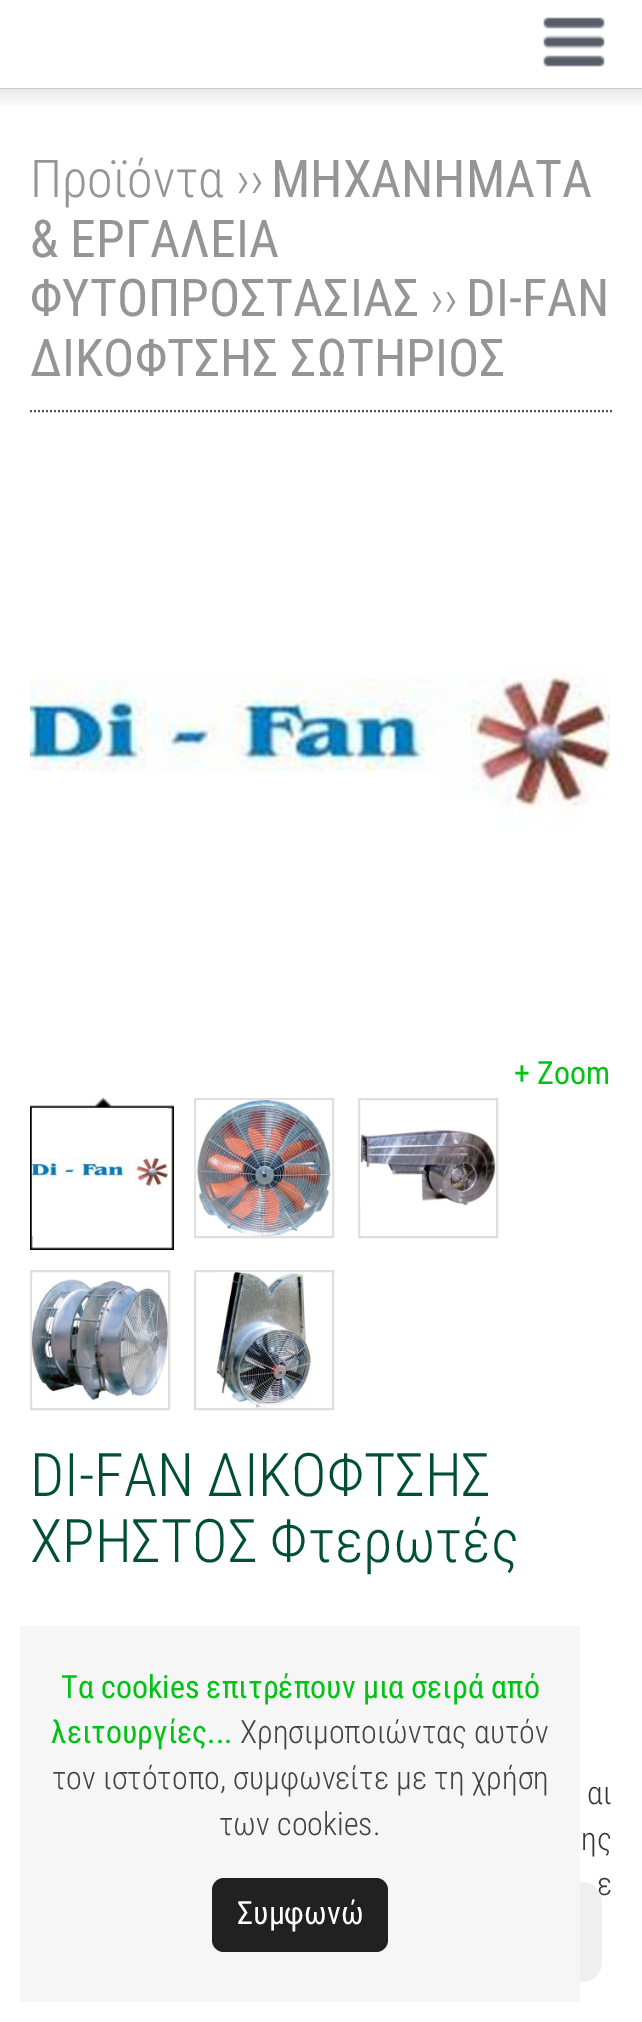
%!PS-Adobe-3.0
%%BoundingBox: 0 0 642 2022
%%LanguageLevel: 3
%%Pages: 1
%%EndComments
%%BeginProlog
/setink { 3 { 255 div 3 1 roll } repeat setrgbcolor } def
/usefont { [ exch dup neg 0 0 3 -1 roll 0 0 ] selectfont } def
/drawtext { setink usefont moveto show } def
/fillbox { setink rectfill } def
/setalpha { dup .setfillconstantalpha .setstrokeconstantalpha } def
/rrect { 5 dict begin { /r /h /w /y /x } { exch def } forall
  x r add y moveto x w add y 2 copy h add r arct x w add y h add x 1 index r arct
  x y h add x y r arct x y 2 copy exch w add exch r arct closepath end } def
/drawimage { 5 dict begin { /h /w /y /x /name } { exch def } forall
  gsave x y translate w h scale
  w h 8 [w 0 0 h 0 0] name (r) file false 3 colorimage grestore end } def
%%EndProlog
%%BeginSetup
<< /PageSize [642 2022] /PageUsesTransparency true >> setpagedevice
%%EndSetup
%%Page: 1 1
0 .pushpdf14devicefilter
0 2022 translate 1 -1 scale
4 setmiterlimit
0 0 642 2022 255 255 255 fillbox
(assets/img1.rgb) 543 17 62 50 drawimage
(assets/img2.rgb) 0 88 642 18 drawimage
(Προϊόντα ››) 30 197 /RobotoCondensed-Light 52 149 149 149 drawtext
(ΜΗΧΑΝΗΜΑΤΑ) 271 197 /RobotoCondensed-Regular 52 149 149 149 drawtext
(& ΕΡΓΑΛΕΙΑ) 30 257 /RobotoCondensed-Regular 52 149 149 149 drawtext
(ΦΥΤΟΠΡΟΣΤΑΣΙΑΣ) 30 316 /RobotoCondensed-Regular 52 149 149 149 drawtext
(››) 430 316 /RobotoCondensed-Light 52 149 149 149 drawtext
(DI-FAN) 466 316 /RobotoCondensed-Regular 52 149 149 149 drawtext
(ΔΙΚΟΦΤΣΗΣ ΣΩΤΗΡΙΟΣ) 30 376 /RobotoCondensed-Regular 52 149 149 149 drawtext
83 83 83 setink
2 setlinewidth
[2 2] 0 setdash
30 411 moveto 612 411 lineto stroke
(assets/img3.rgb) 30 670 580 158 drawimage
(+ Zoom) 514 1084 /RobotoCondensed-Regular 32 1 194 21 drawtext
(assets/img4.rgb) 30 1098 144 152 drawimage
(assets/img5.rgb) 32 1108 136 128 drawimage
223 223 223 setink
[] 0 setdash
195 1099 138 138 rectstroke
(assets/img6.rgb) 196 1100 136 136 drawimage
359 1099 138 138 rectstroke
(assets/img7.rgb) 360 1129 136 77 drawimage
31 1271 138 138 rectstroke
(assets/img8.rgb) 32 1279 136 122 drawimage
195 1271 138 138 rectstroke
(assets/img9.rgb) 216 1272 96 136 drawimage
(DI-FAN ΔΙΚΟΦΤΣΗΣ) 30 1496 /RobotoCondensed-Light 60 0 79 50 drawtext
(ΧΡΗΣΤΟΣ Φτερωτές) 30 1562 /RobotoCondensed-Light 60 0 79 50 drawtext
/RobotoCondensed-Light 32 usefont
55 55 55 setink
587 1804 moveto 10 0 32 (αι) widthshow
581 1850 moveto 6 0 32 (ης) widthshow
597 1895 moveto 9 0 32 (ε) widthshow
0.8 setalpha
235 235 235 setink
502 1882 100 100 20 rrect fill
1 setalpha
20 1626 560 376 246 246 246 fillbox
(Τα cookies επιτρέπουν μια σειρά από) 61 1698 /RobotoCondensed-Regular 32 1 194 21 drawtext
(λειτουργίες...) 51 1743 /RobotoCondensed-Regular 32 1 194 21 drawtext
(Χρησιμοποιώντας αυτόν) 240 1743 /RobotoCondensed-Light 32 66 66 66 drawtext
(τον ιστότοπο, συμφωνείτε με τη χρήση) 52 1789 /RobotoCondensed-Light 32 66 66 66 drawtext
(των cookies.) 219 1835 /RobotoCondensed-Light 32 66 66 66 drawtext
33 33 33 setink
212 1878 176 74 12 rrect fill
(Συμφωνώ) 237 1924 /RobotoCondensed-Regular 32 255 255 255 drawtext
.poppdf14devicefilter showpage
%%EOF
